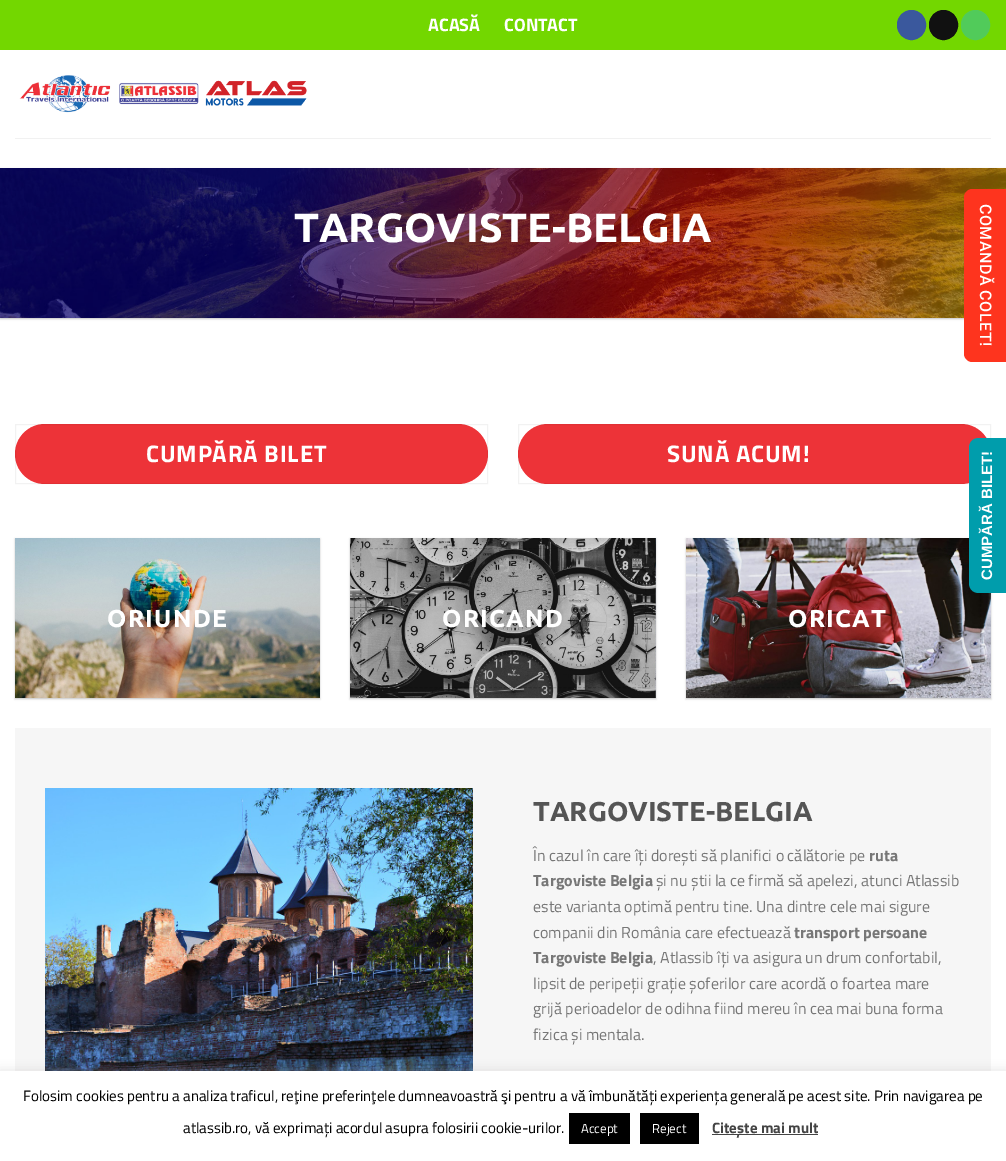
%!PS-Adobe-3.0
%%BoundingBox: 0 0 1006 1161
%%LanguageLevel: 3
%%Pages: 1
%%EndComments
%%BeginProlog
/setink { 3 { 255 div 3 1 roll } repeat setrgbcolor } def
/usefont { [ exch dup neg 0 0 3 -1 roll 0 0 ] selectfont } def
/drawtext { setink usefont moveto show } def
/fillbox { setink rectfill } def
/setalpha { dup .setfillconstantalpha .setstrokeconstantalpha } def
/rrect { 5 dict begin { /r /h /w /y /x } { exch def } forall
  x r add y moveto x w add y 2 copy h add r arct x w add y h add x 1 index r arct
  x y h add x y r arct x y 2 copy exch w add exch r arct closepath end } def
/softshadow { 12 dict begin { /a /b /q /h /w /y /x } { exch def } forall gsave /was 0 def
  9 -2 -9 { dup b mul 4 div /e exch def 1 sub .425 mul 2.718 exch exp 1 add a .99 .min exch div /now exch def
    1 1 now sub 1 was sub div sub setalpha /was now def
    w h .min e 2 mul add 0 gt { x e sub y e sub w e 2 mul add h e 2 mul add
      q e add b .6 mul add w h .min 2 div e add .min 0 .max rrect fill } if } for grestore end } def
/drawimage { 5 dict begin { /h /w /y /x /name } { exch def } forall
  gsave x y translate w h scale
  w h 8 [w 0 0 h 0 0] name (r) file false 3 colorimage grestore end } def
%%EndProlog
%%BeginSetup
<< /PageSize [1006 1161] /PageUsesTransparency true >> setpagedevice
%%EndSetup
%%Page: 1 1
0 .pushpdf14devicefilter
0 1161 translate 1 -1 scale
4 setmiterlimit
0 0 1006 1161 255 255 255 fillbox
0 0 1006 50 115 215 0 fillbox
(ACASĂ) 428 31 /TitilliumWeb-Bold 18 255 255 255 drawtext
(CONTACT) 504 31 /TitilliumWeb-Bold 18 255 255 255 drawtext
58 88 157 setink
897.5 10.5 28 29 14 rrect gsave fill grestore
stroke
17 17 17 setink
929.5 10.5 28 29 14 rrect gsave fill grestore
stroke
81 203 90 setink
961.5 10.5 28 29 14 rrect gsave fill grestore
stroke
(assets/img1.rgb) 19 75 288 38 drawimage
15 138 976 1 241 241 241 fillbox
0 0 0 setink
0 169 1006 150 0 1 0.24 softshadow
(assets/img2.rgb) 0 168 1006 150 drawimage
(TARGOVISTE-BELGIA) 294 242 /Ubuntu-Bold 40.75 255 255 255 drawtext
237 51 56 setink
15 424 473 60 30 rrect fill
0.05 setalpha
0 0 0 setink
15.5 424.5 472 59 rectstroke
/TitilliumWeb-Bold 24 usefont
1 setalpha
255 255 255 setink
146 462 moveto 0.75 0 (CUMPĂRĂ BILET) ashow
237 51 56 setink
518 424 473 60 30 rrect fill
0.05 setalpha
0 0 0 setink
518.5 424.5 472 59 rectstroke
1 setalpha
255 255 255 setink
667 462 moveto 0.75 0 (SUNĂ ACUM!) ashow
0 0 0 setink
15 539 305 160 0 1 0.24 softshadow
(assets/img3.rgb) 15 538 305 160 drawimage
/Ubuntu-Bold 24.5 usefont
255 255 255 setink
107 627 moveto 1.25 0 (ORIUNDE) ashow
0 0 0 setink
350 539 306 160 0 1 0.24 softshadow
(assets/img4.rgb) 350 538 306 160 drawimage
0.16 setalpha
[3 1.96] 0 setdash
360 548.5 moveto 646 548.5 lineto stroke
[3 2.07] 0 setdash
645.5 548 moveto 645.5 688 lineto stroke
[3 1.96] 0 setdash
360 687.5 moveto 646 687.5 lineto stroke
[3 2.07] 0 setdash
360.5 548 moveto 360.5 688 lineto stroke
1 setalpha
255 255 255 setink
442 627 moveto 1.25 0 (ORICAND) ashow
0 0 0 setink
686 539 305 160 0 1 0.24 softshadow
(assets/img5.rgb) 686 538 305 160 drawimage
0.16 setalpha
[3 2.04] 0 setdash
696 548.5 moveto 981 548.5 lineto stroke
[3 2.07] 0 setdash
980.5 548 moveto 980.5 688 lineto stroke
[3 2.04] 0 setdash
696 687.5 moveto 981 687.5 lineto stroke
[3 2.07] 0 setdash
696.5 548 moveto 696.5 688 lineto stroke
1 setalpha
255 255 255 setink
788 627 moveto 1.25 0 (ORICAT) ashow
15 728 976 343 246 246 246 fillbox
(assets/img6.rgb) 45 788 428 283 drawimage
(TARGOVISTE-BELGIA) 533 821 /Ubuntu-Bold 27.25 85 85 85 drawtext
(În cazul în care îți dorești să planifici o călătorie pe) 533 861 /TitilliumWeb-Regular 16 119 119 119 drawtext
(ruta) 869 861 /TitilliumWeb-Bold 16 119 119 119 drawtext
(Targoviste Belgia) 533 886 /TitilliumWeb-Bold 16 119 119 119 drawtext
(și nu știi la ce firmă să apelezi, atunci Atlassib) 656 886 /TitilliumWeb-Regular 16 119 119 119 drawtext
(este varianta optimă pentru tine. Una dintre cele mai sigure) 533 912 /TitilliumWeb-Regular 16 119 119 119 drawtext
(companii din România care efectuează) 533 938 /TitilliumWeb-Regular 16 119 119 119 drawtext
(transport persoane) 794 938 /TitilliumWeb-Bold 16 119 119 119 drawtext
(Targoviste Belgia) 533 963 /TitilliumWeb-Bold 16 119 119 119 drawtext
(, Atlassib îți va asigura un drum confortabil,) 653 963 /TitilliumWeb-Regular 16 119 119 119 drawtext
(lipsit de peripeții grație șoferilor care acordă o foartea mare) 533 989 /TitilliumWeb-Regular 16 119 119 119 drawtext
(grijă perioadelor de odihna fiind mereu în cea mai buna forma) 533 1014 /TitilliumWeb-Regular 16 119 119 119 drawtext
(fizica și mentala.) 533 1040 /TitilliumWeb-Regular 16 119 119 119 drawtext
254 52 30 setink
1006 189 moveto 1006 362 lineto 972 362 lineto 968 362 964 358 964 354 curveto 964 197 lineto 964 193 968 189 972 189 curveto closepath fill
/Roboto-Medium 16 usefont
255 255 255 setink
gsave 980 204 translate 90 rotate 0 0 moveto 0.5 0 (COMANDĂ COLET!) ashow grestore
0 157 172 setink
969 583 moveto 969 448 lineto 969 442 973 438 979 438 curveto 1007 438 lineto 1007 593 lineto 979 593 lineto 973 593 969 589 969 583 curveto closepath fill
/LiberationSans-Bold 15 usefont
255 255 255 setink
gsave 992 580 translate -90 rotate 0 0 moveto (CUMPĂRĂ BILET!) show grestore
172 171 171 setink
0 1070 1006 90 0 5 0.3 softshadow
0 1071 1006 90 255 255 255 fillbox
(Folosim cookies pentru a analiza traficul, reţine preferinţele dumneavoastră şi pentru a vă îmbunătăți experiența generală pe acest site. Prin navigarea pe) 23 1101 /TitilliumWeb-Regular 15 0 0 0 drawtext
(atlassib.ro, vă exprimați acordul asupra folosirii cookie-urilor.) 183 1133 /TitilliumWeb-Regular 15 0 0 0 drawtext
569 1113 61 31 0 0 0 fillbox
(Accept) 581 1133 /TitilliumWeb-Regular 13 255 255 255 drawtext
640 1113 59 31 0 0 0 fillbox
(Reject) 652 1133 /TitilliumWeb-Regular 13 255 255 255 drawtext
712 1134 106 1 68 68 68 fillbox
(Citește mai mult) 712 1133 /TitilliumWeb-Bold 15 68 68 68 drawtext
.poppdf14devicefilter showpage
%%EOF
